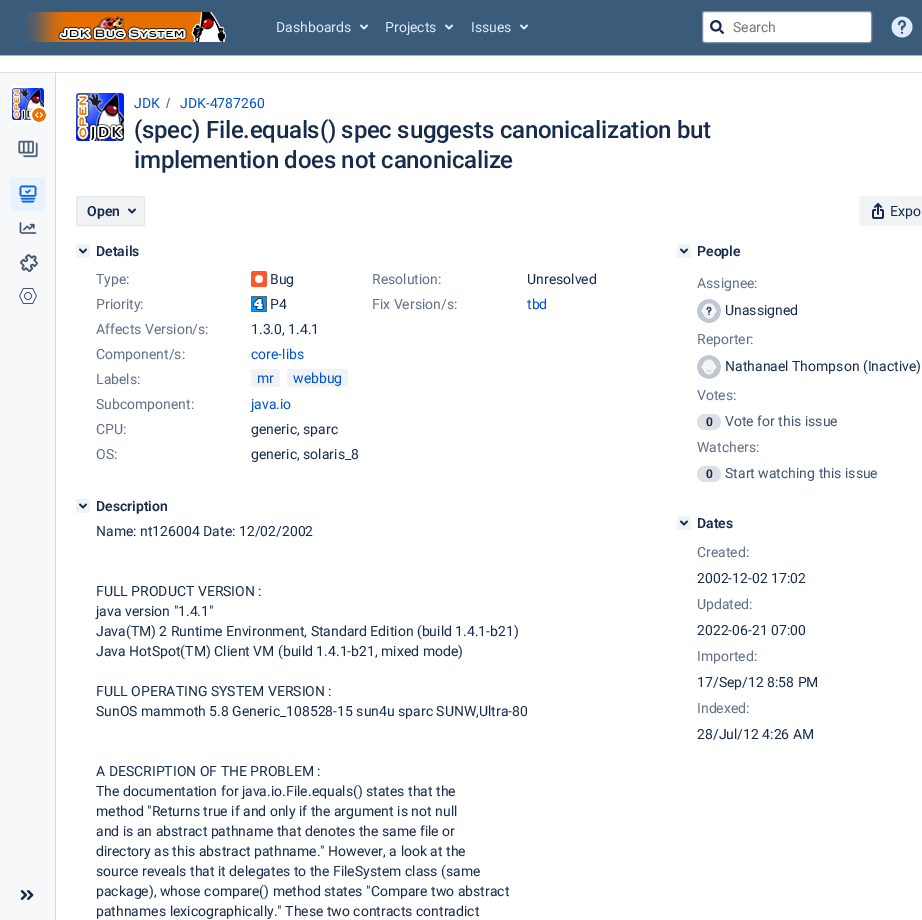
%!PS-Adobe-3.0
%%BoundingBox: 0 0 922 920
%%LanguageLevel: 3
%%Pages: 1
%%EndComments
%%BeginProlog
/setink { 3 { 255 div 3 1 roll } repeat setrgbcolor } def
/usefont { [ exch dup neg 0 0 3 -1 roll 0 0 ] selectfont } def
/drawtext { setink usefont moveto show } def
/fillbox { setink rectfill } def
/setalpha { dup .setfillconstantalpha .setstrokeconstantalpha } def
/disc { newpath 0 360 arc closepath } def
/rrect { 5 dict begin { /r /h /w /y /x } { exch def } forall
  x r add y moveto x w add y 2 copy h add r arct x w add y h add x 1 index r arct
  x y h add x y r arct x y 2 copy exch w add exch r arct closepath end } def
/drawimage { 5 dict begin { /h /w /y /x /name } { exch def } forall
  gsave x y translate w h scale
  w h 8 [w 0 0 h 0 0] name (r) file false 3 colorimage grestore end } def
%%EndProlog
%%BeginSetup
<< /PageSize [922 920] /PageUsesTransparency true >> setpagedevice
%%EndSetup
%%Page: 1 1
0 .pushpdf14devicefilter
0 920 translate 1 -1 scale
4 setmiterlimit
0 0 922 920 255 255 255 fillbox
0 0 922 55 59 91 123 fillbox
0 55 922 1 164 179 196 fillbox
(assets/img1.rgb) 25 12 201 30 drawimage
(Dashboards) 276 32 /Roboto-Regular 14 222 235 255 drawtext
(assets/img2.rgb) 360 24 8 6 drawimage
(Projects) 385 32 /Roboto-Regular 14 222 235 255 drawtext
(assets/img2.rgb) 445 24 8 6 drawimage
(Issues) 471 32 /Roboto-Regular 14 222 235 255 drawtext
(assets/img2.rgb) 520 24 8 6 drawimage
255 255 255 setink
702.5 11.5 169 31 2.5 rrect gsave fill grestore
133 144 162 setink
stroke
(assets/img3.rgb) 710 20 14 14 drawimage
(Search) 733 32 /Roboto-Regular 14 117 117 117 drawtext
(assets/img4.rgb) 891 16 22 22 drawimage
0 72 922 1 221 224 229 fillbox
0 73 55 847 247 248 249 fillbox
55 73 1 847 214 217 223 fillbox
255 255 255 setink
2 setlinewidth
11 87 34 34 4 rrect stroke
(assets/img5.rgb) 12 88 32 32 drawimage
39 115 9 disc fill
(assets/img6.rgb) 32 108 14 14 drawimage
(assets/img7.rgb) 18 140 20 18 drawimage
233 242 255 setink
10 177 35 34 3 rrect fill
(assets/img8.rgb) 19 185 18 18 drawimage
(assets/img9.rgb) 19 222 18 12 drawimage
(assets/img10.rgb) 20 254 18 18 drawimage
(assets/img11.rgb) 19 288 18 16 drawimage
(assets/img12.rgb) 20 890 14 10 drawimage
(assets/img13.rgb) 76 93 48 48 drawimage
(JDK) 134 108 /Roboto-Regular 14 0 82 204 drawtext
112 112 112 setink
167 108 moveto 170 98 lineto 169 98 lineto 166 108 lineto closepath fill
(JDK-4787260) 180 108 /Roboto-Regular 14 0 82 204 drawtext
/Roboto-Medium 24 usefont
23 43 77 setink
134 138 moveto -0.25 0 (\(spec\) File.equals\(\) spec suggests canonicalization but) ashow
134 168 moveto -0.25 0 (implemention does not canonicalize) ashow
240 242 244 setink
76 196 69 30 3 rrect fill
0.06 setalpha
9 30 66 setink
1 setlinewidth
76.5 196.5 68 29 rectstroke
1 setalpha
(Open) 87 216 /Roboto-SemiBold 14 23 43 77 drawtext
(assets/img14.rgb) 128 208 8 6 drawimage
240 242 244 setink
859 196 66 30 3 rrect fill
(assets/img15.rgb) 872 203 12 16 drawimage
(Expo) 890 216 /Roboto-Regular 14 23 43 77 drawtext
240 242 244 setink
76 244 14 14 3 rrect fill
(assets/img16.rgb) 79 248 8 6 drawimage
(Details) 96 256 /Roboto-SemiBold 14 23 43 77 drawtext
(Type:) 96 284 /Roboto-Regular 14 98 111 134 drawtext
(assets/img17.rgb) 251 271 16 16 drawimage
(Bug) 270 284 /Roboto-Regular 14 23 43 77 drawtext
(Resolution:) 372 284 /Roboto-Regular 14 98 111 134 drawtext
(Unresolved) 527 284 /Roboto-Regular 14 23 43 77 drawtext
(Priority:) 96 309 /Roboto-Regular 14 98 111 134 drawtext
(assets/img18.rgb) 251 296 16 16 drawimage
(P4) 270 309 /Roboto-Regular 14 23 43 77 drawtext
(Fix Version/s:) 372 309 /Roboto-Regular 14 98 111 134 drawtext
(tbd) 527 309 /Roboto-Regular 14 0 82 204 drawtext
(Affects Version/s:) 96 334 /Roboto-Regular 14 98 111 134 drawtext
(1.3.0, 1.4.1) 251 334 /Roboto-Regular 14 23 43 77 drawtext
(Component/s:) 96 359 /Roboto-Regular 14 98 111 134 drawtext
(core-libs) 251 359 /Roboto-Regular 14 0 82 204 drawtext
(Labels:) 96 384 /Roboto-Regular 14 98 111 134 drawtext
240 242 244 setink
251 369 29 18 3 rrect fill
(mr) 257 383 /Roboto-Regular 14 0 82 204 drawtext
240 242 244 setink
287 369 61 18 3 rrect fill
(webbug) 293 383 /Roboto-Regular 14 0 82 204 drawtext
(Subcomponent:) 96 409 /Roboto-Regular 14 98 111 134 drawtext
(java.io) 251 409 /Roboto-Regular 14 0 82 204 drawtext
(CPU:) 96 434 /Roboto-Regular 14 98 111 134 drawtext
(generic, sparc) 251 434 /Roboto-Regular 14 23 43 77 drawtext
(OS:) 96 459 /Roboto-Regular 14 98 111 134 drawtext
(generic, solaris_8) 251 459 /Roboto-Regular 14 23 43 77 drawtext
240 242 244 setink
76 499 14 14 3 rrect fill
(assets/img16.rgb) 79 503 8 6 drawimage
(Description) 96 511 /Roboto-SemiBold 14 23 43 77 drawtext
(Name: nt126004 Date: 12/02/2002) 96 536 /Roboto-Regular 14 23 43 77 drawtext
(FULL PRODUCT VERSION :) 96 596 /Roboto-Regular 14 23 43 77 drawtext
(java version "1.4.1") 96 616 /Roboto-Regular 14 23 43 77 drawtext
(Java\(TM\) 2 Runtime Environment, Standard Edition \(build 1.4.1-b21\)) 96 636 /Roboto-Regular 14 23 43 77 drawtext
(Java HotSpot\(TM\) Client VM \(build 1.4.1-b21, mixed mode\)) 96 656 /Roboto-Regular 14 23 43 77 drawtext
(FULL OPERATING SYSTEM VERSION :) 96 696 /Roboto-Regular 14 23 43 77 drawtext
(SunOS mammoth 5.8 Generic_108528-15 sun4u sparc SUNW,Ultra-80) 96 716 /Roboto-Regular 14 23 43 77 drawtext
(A DESCRIPTION OF THE PROBLEM :) 96 776 /Roboto-Regular 14 23 43 77 drawtext
(The documentation for java.io.File.equals\(\) states that the) 96 796 /Roboto-Regular 14 23 43 77 drawtext
(method "Returns true if and only if the argument is not null) 96 816 /Roboto-Regular 14 23 43 77 drawtext
(and is an abstract pathname that denotes the same file or) 96 836 /Roboto-Regular 14 23 43 77 drawtext
(directory as this abstract pathname." However, a look at the) 96 856 /Roboto-Regular 14 23 43 77 drawtext
(source reveals that it delegates to the FileSystem class \(same) 96 876 /Roboto-Regular 14 23 43 77 drawtext
(package\), whose compare\(\) method states "Compare two abstract) 96 896 /Roboto-Regular 14 23 43 77 drawtext
(pathnames lexicographically." These two contracts contradict) 96 916 /Roboto-Regular 14 23 43 77 drawtext
240 242 244 setink
677 244 14 14 3 rrect fill
(assets/img16.rgb) 680 248 8 6 drawimage
(People) 697 256 /Roboto-SemiBold 14 23 43 77 drawtext
(Assignee:) 697 288 /Roboto-Regular 14 98 111 134 drawtext
(assets/img19.rgb) 697 299 24 24 drawimage
(Unassigned) 725 315 /Roboto-Regular 14 23 43 77 drawtext
(Reporter:) 697 344 /Roboto-Regular 14 98 111 134 drawtext
(assets/img20.rgb) 697 355 24 24 drawimage
(Nathanael Thompson \(Inactive\)) 725 371 /Roboto-Regular 14 23 43 77 drawtext
(Votes:) 697 400 /Roboto-Regular 14 98 111 134 drawtext
220 223 228 setink
697 414 24 16 8 rrect fill
(0) 706 426 /Roboto-SemiBold 12 23 43 77 drawtext
(Vote for this issue) 725 426 /Roboto-Regular 14 68 84 111 drawtext
(Watchers:) 697 452 /Roboto-Regular 14 98 111 134 drawtext
220 223 228 setink
697 466 24 16 8 rrect fill
(0) 706 478 /Roboto-SemiBold 12 23 43 77 drawtext
(Start watching this issue) 725 478 /Roboto-Regular 14 68 84 111 drawtext
240 242 244 setink
677 516 14 14 3 rrect fill
(assets/img16.rgb) 680 520 8 6 drawimage
(Dates) 697 528 /Roboto-SemiBold 14 23 43 77 drawtext
(Created:) 697 557 /Roboto-Regular 14 98 111 134 drawtext
(2002-12-02 17:02) 697 583 /Roboto-Regular 14 23 43 77 drawtext
(Updated:) 697 609 /Roboto-Regular 14 98 111 134 drawtext
(2022-06-21 07:00) 697 635 /Roboto-Regular 14 23 43 77 drawtext
(Imported:) 697 661 /Roboto-Regular 14 98 111 134 drawtext
(17/Sep/12 8:58 PM) 697 687 /Roboto-Regular 14 23 43 77 drawtext
(Indexed:) 697 713 /Roboto-Regular 14 98 111 134 drawtext
(28/Jul/12 4:26 AM) 697 739 /Roboto-Regular 14 23 43 77 drawtext
.poppdf14devicefilter showpage
%%EOF
